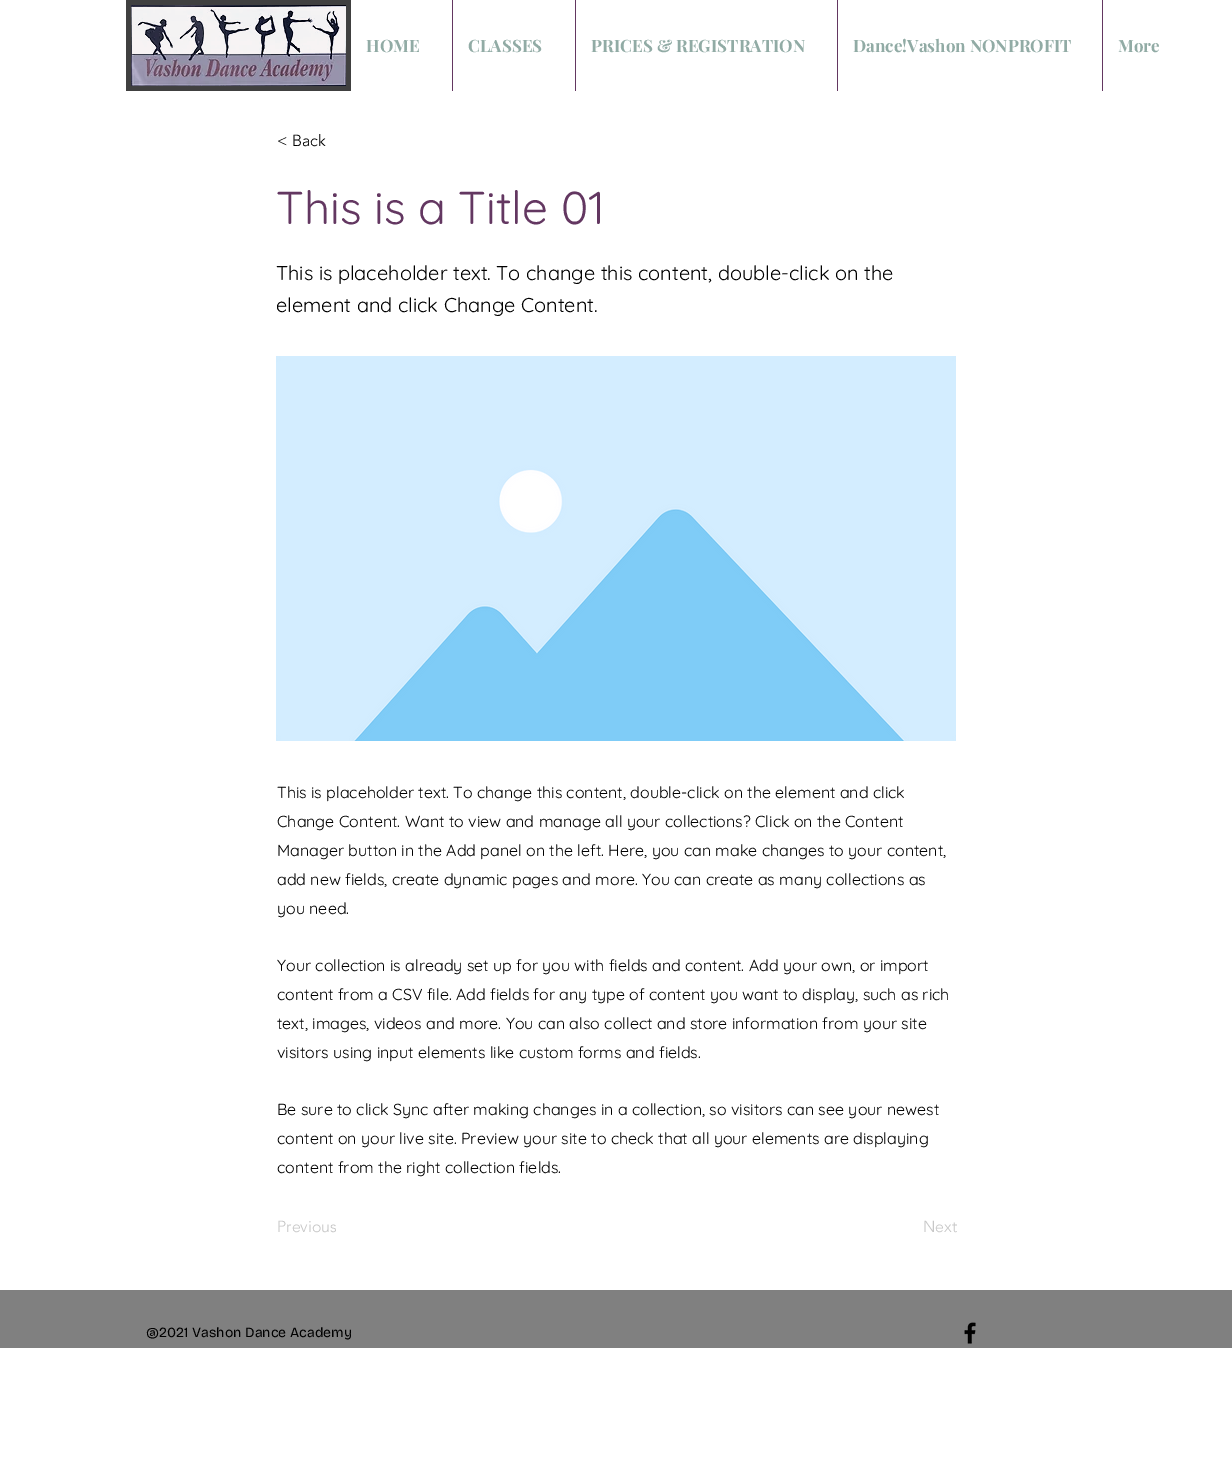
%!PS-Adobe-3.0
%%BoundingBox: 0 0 1232 1479
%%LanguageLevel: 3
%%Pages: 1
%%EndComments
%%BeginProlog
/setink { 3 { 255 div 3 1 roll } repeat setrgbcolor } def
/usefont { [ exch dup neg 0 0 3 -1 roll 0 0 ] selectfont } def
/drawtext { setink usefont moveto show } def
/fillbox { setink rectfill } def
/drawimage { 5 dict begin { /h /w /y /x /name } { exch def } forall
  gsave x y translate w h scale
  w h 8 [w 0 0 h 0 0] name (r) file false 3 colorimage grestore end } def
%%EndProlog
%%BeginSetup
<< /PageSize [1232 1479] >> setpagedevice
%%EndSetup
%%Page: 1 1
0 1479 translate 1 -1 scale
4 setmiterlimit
0 0 1232 1479 255 255 255 fillbox
126 0 225 91 64 64 64 fillbox
(assets/img1.rgb) 131 5 215 81 drawimage
(HOME) 366 52 /PlayfairDisplay-Bold 17 145 171 165 drawtext
452 0 1 91 99 55 97 fillbox
(CLASSES) 468 52 /PlayfairDisplay-Bold 17 145 171 165 drawtext
575 0 1 91 99 55 97 fillbox
(PRICES & REGISTRATION) 591 52 /PlayfairDisplay-Bold 17 145 171 165 drawtext
837 0 1 91 99 55 97 fillbox
(Dance!Vashon NONPROFIT) 853 52 /PlayfairDisplay-Bold 17 145 171 165 drawtext
1102 0 1 91 99 55 97 fillbox
(More) 1118 52 /PlayfairDisplay-Bold 17 145 171 165 drawtext
(< Back) 277 146 /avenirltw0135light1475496-Light 16 0 0 0 drawtext
(This is a Title 01) 276 224 /Quicksand-Regular 46 99 55 97 drawtext
(This is placeholder text. To change this content, double-click on the) 276 280 /Quicksand-Regular 20 0 0 0 drawtext
(element and click Change Content.) 276 312 /Quicksand-Regular 20 0 0 0 drawtext
(assets/img2.rgb) 276 356 680 385 drawimage
(This is placeholder text. To change this content, double-click on the element and click) 277 798 /Quicksand-Regular 16 0 0 0 drawtext
(Change Content. Want to view and manage all your collections? Click on the Content) 277 827 /Quicksand-Regular 16 0 0 0 drawtext
(Manager button in the Add panel on the left. Here, you can make changes to your content,) 277 856 /Quicksand-Regular 16 0 0 0 drawtext
(add new fields, create dynamic pages and more. You can create as many collections as) 277 885 /Quicksand-Regular 16 0 0 0 drawtext
(you need.) 277 914 /Quicksand-Regular 16 0 0 0 drawtext
(Your collection is already set up for you with fields and content. Add your own, or import) 277 971 /Quicksand-Regular 16 0 0 0 drawtext
(content from a CSV file. Add fields for any type of content you want to display, such as rich) 277 1000 /Quicksand-Regular 16 0 0 0 drawtext
(text, images, videos and more. You can also collect and store information from your site) 277 1029 /Quicksand-Regular 16 0 0 0 drawtext
(visitors using input elements like custom forms and fields.) 277 1058 /Quicksand-Regular 16 0 0 0 drawtext
(Be sure to click Sync after making changes in a collection, so visitors can see your newest) 277 1115 /Quicksand-Regular 16 0 0 0 drawtext
(content on your live site. Preview your site to check that all your elements are displaying) 277 1144 /Quicksand-Regular 16 0 0 0 drawtext
(content from the right collection fields.) 277 1173 /Quicksand-Regular 16 0 0 0 drawtext
(Previous) 277 1232 /avenirltw0135light1475496-Light 16 199 199 199 drawtext
(Next) 923 1232 /avenirltw0135light1475496-Light 16 199 199 199 drawtext
0 1290 1232 58 128 128 128 fillbox
(@2021 Vashon Dance Academy) 146 1337 /BricolageGrotesque-Regular 14 0 0 0 drawtext
(assets/img3.rgb) 964 1322 12 22 drawimage
showpage
%%EOF
